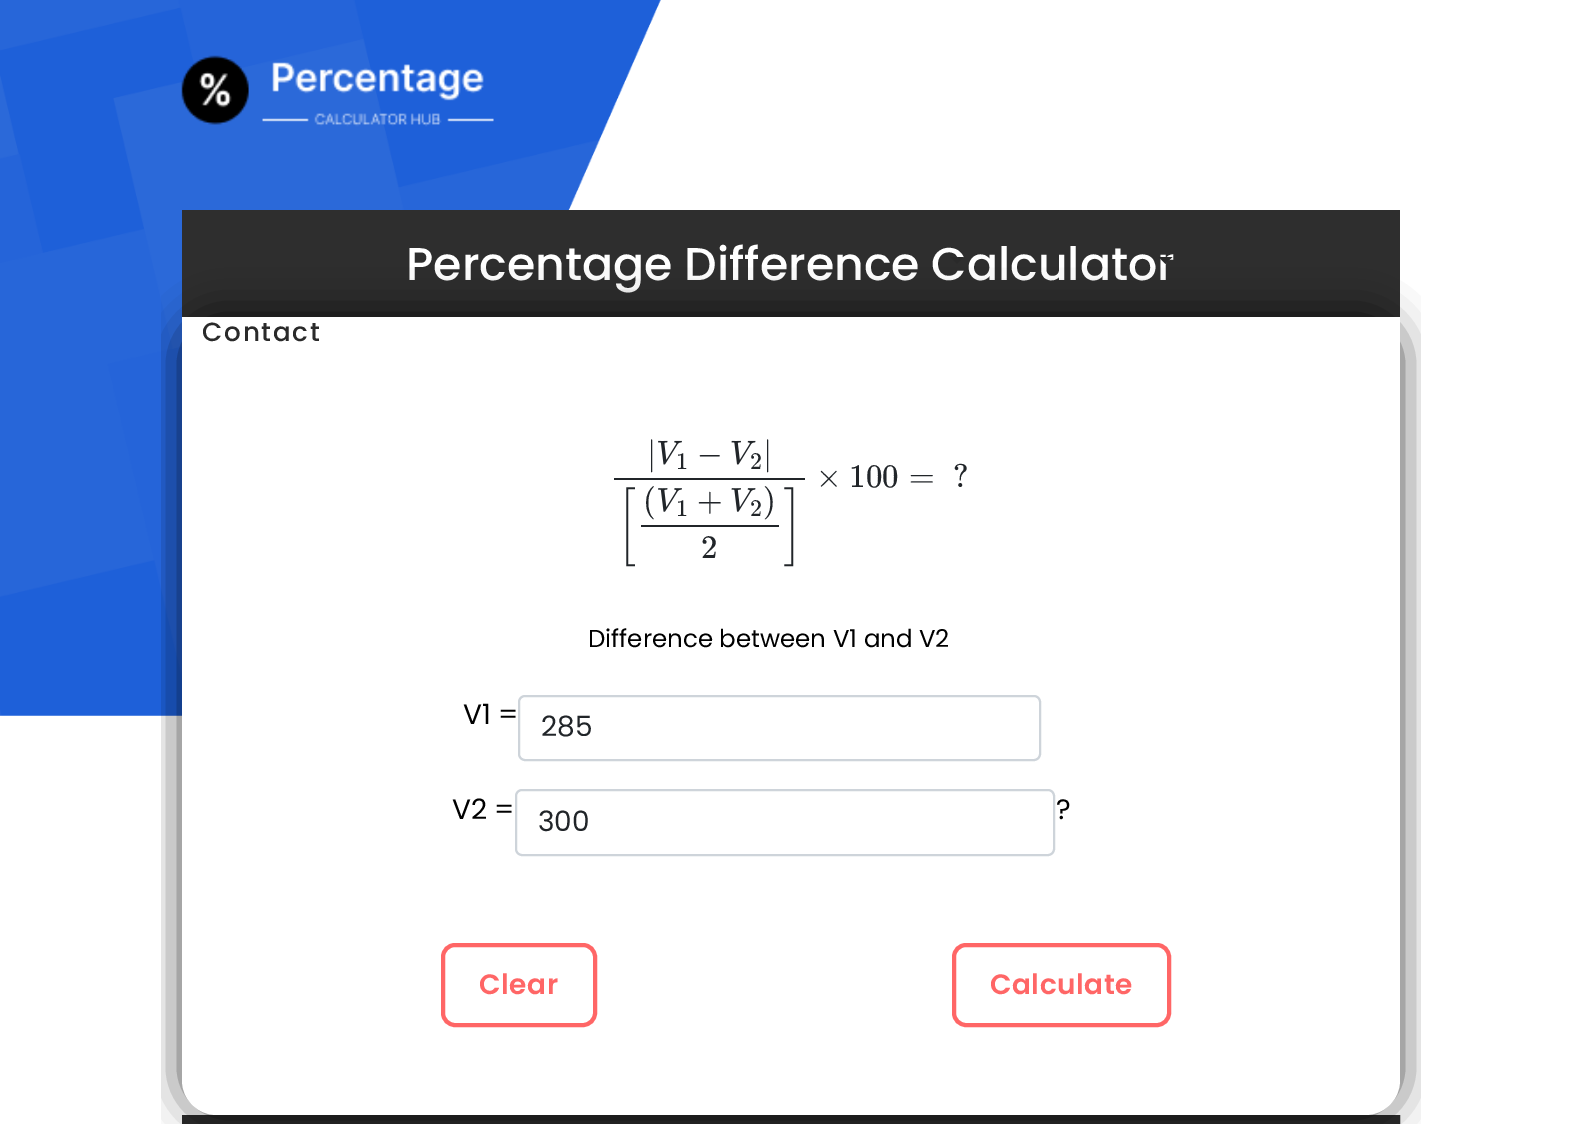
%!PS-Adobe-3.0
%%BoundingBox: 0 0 1580 1124
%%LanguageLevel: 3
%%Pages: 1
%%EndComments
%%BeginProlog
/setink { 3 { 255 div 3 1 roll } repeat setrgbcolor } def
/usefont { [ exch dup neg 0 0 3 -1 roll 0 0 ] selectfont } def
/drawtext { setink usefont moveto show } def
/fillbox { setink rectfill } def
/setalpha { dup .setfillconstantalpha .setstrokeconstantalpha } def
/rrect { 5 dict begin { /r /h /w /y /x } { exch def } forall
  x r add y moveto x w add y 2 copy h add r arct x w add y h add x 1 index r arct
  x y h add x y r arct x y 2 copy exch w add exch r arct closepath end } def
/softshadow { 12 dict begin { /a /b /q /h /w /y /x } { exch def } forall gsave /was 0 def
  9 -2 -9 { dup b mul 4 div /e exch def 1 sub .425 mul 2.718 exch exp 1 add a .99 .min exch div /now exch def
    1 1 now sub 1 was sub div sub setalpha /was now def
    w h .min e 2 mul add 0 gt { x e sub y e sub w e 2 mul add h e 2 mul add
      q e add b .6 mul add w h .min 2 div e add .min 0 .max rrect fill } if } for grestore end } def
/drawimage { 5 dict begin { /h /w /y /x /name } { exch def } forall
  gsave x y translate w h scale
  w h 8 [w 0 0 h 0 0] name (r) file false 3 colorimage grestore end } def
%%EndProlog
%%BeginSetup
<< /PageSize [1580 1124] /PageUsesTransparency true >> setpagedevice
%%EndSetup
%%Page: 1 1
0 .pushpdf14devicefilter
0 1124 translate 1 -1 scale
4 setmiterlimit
0 0 1580 1124 255 255 255 fillbox
(assets/img1.rgb) 0 0 661 716 drawimage
(assets/img2.rgb) 181 55 313 72 drawimage
182 210 1218 107 46 46 46 fillbox
(Percentage Difference Calculator) 406 280 /Poppins-Medium 45.9 255 255 255 drawtext
42 42 42 setink
9 setlinewidth
186.5 1119.5 1209 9 rectstroke
gsave
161 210 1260 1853 rectclip
0 0 0 setink
182 317 1218 798 35 22 0.7 softshadow
grestore
950 257 moveto 964 257 lineto 957 264 lineto closepath fill
1158.5 257 moveto 1172.5 257 lineto 1165.5 264 lineto closepath fill
255 255 255 setink
182 317 moveto 1400 317 lineto 1400 1080 lineto 1400 1099.5 1384.5 1115 1365 1115 curveto 217 1115 lineto 197.5 1115 182 1099.5 182 1080 curveto closepath fill
/Poppins-Medium 26.25 usefont
42 42 42 setink
202 341 moveto 1.75 0 (Contact) ashow
(|) 647 464 /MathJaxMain-Regular 33 33 37 41 drawtext
(assets/img3.rgb) 658 440 24 25 drawimage
(1) 676 469 /MathJaxMain-Regular 24 33 37 41 drawtext
(−) 697 464 /MathJaxMain-Regular 33 33 37 41 drawtext
(assets/img4.rgb) 731 440 25 25 drawimage
(2) 750 469 /MathJaxMain-Regular 24 33 37 41 drawtext
(|) 763 464 /MathJaxMain-Regular 33 33 37 41 drawtext
614 478 191 2 33 37 41 fillbox
([) 618 535 /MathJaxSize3-Regular 33 33 37 41 drawtext
(\() 643 511 /MathJaxMain-Regular 33 33 37 41 drawtext
(assets/img5.rgb) 658 488 24 24 drawimage
(1) 676 516 /MathJaxMain-Regular 24 33 37 41 drawtext
(+) 697 511 /MathJaxMain-Regular 33 33 37 41 drawtext
(assets/img6.rgb) 731 488 25 24 drawimage
(2) 750 516 /MathJaxMain-Regular 24 33 37 41 drawtext
(\)) 763 511 /MathJaxMain-Regular 33 33 37 41 drawtext
641 525 138 2 33 37 41 fillbox
(2) 701 558 /MathJaxMain-Regular 33 33 37 41 drawtext
(]) 784 535 /MathJaxSize3-Regular 33 33 37 41 drawtext
(×) 816 487 /MathJaxMain-Regular 33 33 37 41 drawtext
(100) 849 487 /MathJaxMain-Regular 33 33 37 41 drawtext
(=) 909 487 /MathJaxMain-Regular 33 33 37 41 drawtext
(?) 953 487 /MathJaxMain-Regular 33 33 37 41 drawtext
(Difference between V1 and V2) 588 647 /Poppins-Regular 24.5 0 0 0 drawtext
(V1 =) 463 724 /Poppins-Regular 28 0 0 0 drawtext
206 212 218 setink
2 setlinewidth
519 696 521 64 6 rrect stroke
(285) 541 736 /Poppins-Regular 28 33 37 41 drawtext
(V2 =) 452 819 /Poppins-Regular 28 0 0 0 drawtext
206 212 218 setink
516 790 538 65 6 rrect stroke
(300) 538 831 /Poppins-Regular 28 33 37 41 drawtext
(?) 1056 819 /Poppins-Regular 28 0 0 0 drawtext
255 102 102 setink
4 setlinewidth
443 945 152 80 12 rrect stroke
/Poppins-SemiBold 28 usefont
479 994 moveto 0.5 0 (Clear) ashow
954 945 215 80 12 rrect stroke
990 994 moveto 0.5 0 (Calculate) ashow
.poppdf14devicefilter showpage
%%EOF
